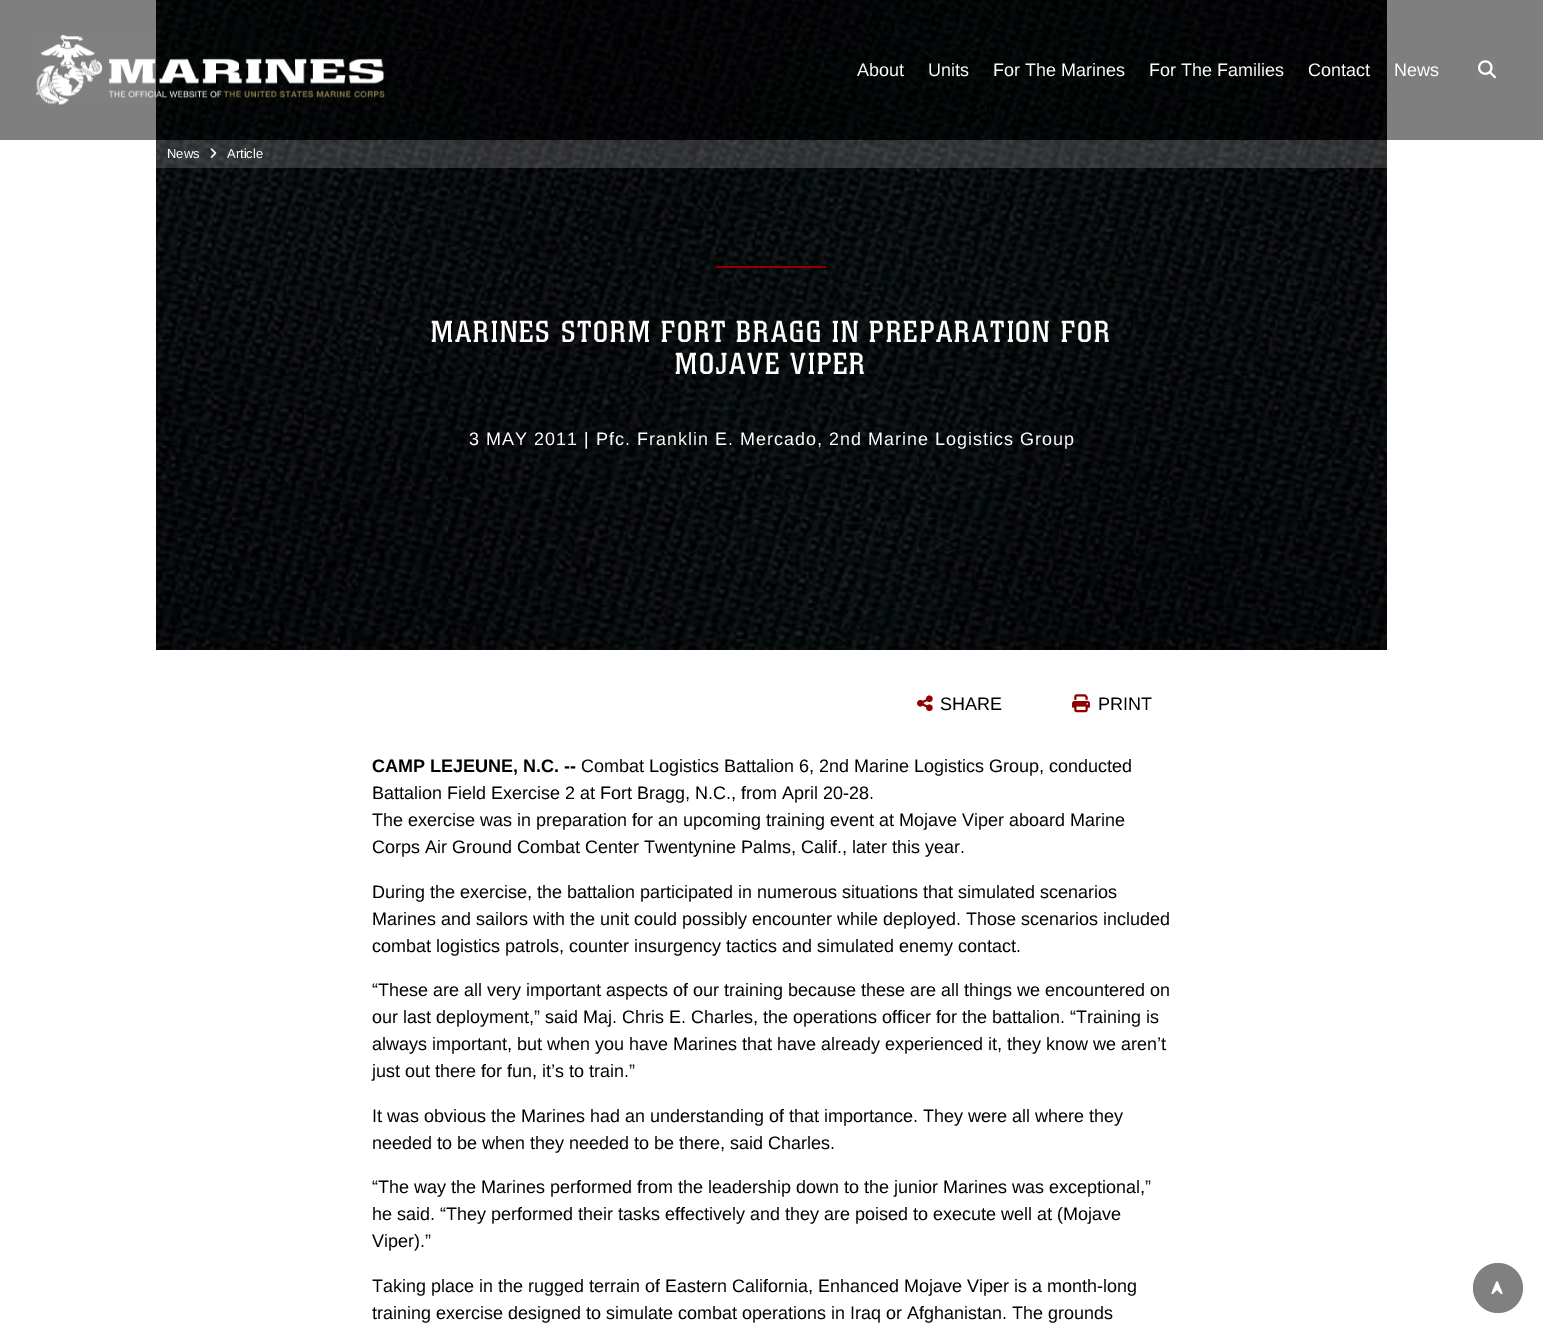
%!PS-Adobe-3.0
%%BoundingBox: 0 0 1543 1333
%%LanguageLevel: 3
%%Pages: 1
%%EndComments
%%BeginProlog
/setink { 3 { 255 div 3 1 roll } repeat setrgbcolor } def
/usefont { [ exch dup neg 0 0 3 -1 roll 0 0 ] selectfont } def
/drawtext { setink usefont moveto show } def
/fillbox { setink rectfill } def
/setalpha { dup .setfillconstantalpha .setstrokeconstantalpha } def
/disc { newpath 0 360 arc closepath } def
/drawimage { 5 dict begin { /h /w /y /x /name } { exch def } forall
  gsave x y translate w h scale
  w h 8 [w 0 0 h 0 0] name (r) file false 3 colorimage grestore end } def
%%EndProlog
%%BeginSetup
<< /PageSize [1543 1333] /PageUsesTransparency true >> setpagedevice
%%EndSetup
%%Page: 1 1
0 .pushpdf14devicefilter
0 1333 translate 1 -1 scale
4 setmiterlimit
0 0 1543 1333 255 255 255 fillbox
(assets/img5.rgb) 156 0 1231 650 drawimage
0.5 setalpha
0 0 1543 140 0 0 0 fillbox
1 setalpha
(assets/img1.rgb) 35 35 350 70 drawimage
(About) 857 76 /LiberationSans-Regular 18 255 255 255 drawtext
(Units) 928 76 /LiberationSans-Regular 18 255 255 255 drawtext
(For The Marines) 993 76 /LiberationSans-Regular 18 255 255 255 drawtext
(For The Families) 1149 76 /LiberationSans-Regular 18 255 255 255 drawtext
(Contact) 1308 76 /LiberationSans-Regular 18 255 255 255 drawtext
(News) 1394 76 /LiberationSans-Regular 18 255 255 255 drawtext
(assets/img2.rgb) 1478 60 18 19 drawimage
0.17 setalpha
156 140 1231 28 255 255 255 fillbox
1 setalpha
(assets/img3.rgb) 156 152 1 2 drawimage
(News) 167 158 /LiberationSans-Regular 13 255 255 255 drawtext
(assets/img4.rgb) 210 148 7 10 drawimage
(Article) 227 158 /LiberationSans-Regular 13 255 255 255 drawtext
716 266 110 2 148 0 0 fillbox
/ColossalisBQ-Regular 30 usefont
255 255 255 setink
431 342 moveto 2 0 (MARINES STORM FORT BRAGG IN PREPARATION FOR) ashow
675 374 moveto 2 0 (MOJAVE VIPER) ashow
/LiberationSans-Regular 18 usefont
469 445 moveto 1 0 (3 MAY 2011 | Pfc. Franklin E. Mercado, 2nd Marine Logistics Group) ashow
(assets/img6.rgb) 917 695 16 17 drawimage
(SHARE) 940 710 /LiberationSans-Regular 18 0 0 0 drawtext
(assets/img7.rgb) 1072 694 18 19 drawimage
(PRINT) 1098 710 /LiberationSans-Regular 18 0 0 0 drawtext
(CAMP LEJEUNE, N.C. --) 372 772 /LiberationSans-Bold 18 0 0 0 drawtext
(Combat Logistics Battalion 6, 2nd Marine Logistics Group, conducted) 581 772 /LiberationSans-Regular 18 0 0 0 drawtext
(Battalion Field Exercise 2 at Fort Bragg, N.C., from April 20-28.) 372 799 /LiberationSans-Regular 18 0 0 0 drawtext
(The exercise was in preparation for an upcoming training event at Mojave Viper aboard Marine) 372 826 /LiberationSans-Regular 18 0 0 0 drawtext
(Corps Air Ground Combat Center Twentynine Palms, Calif., later this year.) 372 853 /LiberationSans-Regular 18 0 0 0 drawtext
(During the exercise, the battalion participated in numerous situations that simulated scenarios) 372 898 /LiberationSans-Regular 18 0 0 0 drawtext
(Marines and sailors with the unit could possibly encounter while deployed. Those scenarios included) 372 925 /LiberationSans-Regular 18 0 0 0 drawtext
(combat logistics patrols, counter insurgency tactics and simulated enemy contact.) 372 952 /LiberationSans-Regular 18 0 0 0 drawtext
(“These are all very important aspects of our training because these are all things we encountered on) 372 996 /LiberationSans-Regular 18 0 0 0 drawtext
(our last deployment,” said Maj. Chris E. Charles, the operations officer for the battalion. “Training is) 372 1023 /LiberationSans-Regular 18 0 0 0 drawtext
(always important, but when you have Marines that have already experienced it, they know we aren’t) 372 1050 /LiberationSans-Regular 18 0 0 0 drawtext
(just out there for fun, it’s to train.”) 372 1077 /LiberationSans-Regular 18 0 0 0 drawtext
(It was obvious the Marines had an understanding of that importance. They were all where they) 372 1122 /LiberationSans-Regular 18 0 0 0 drawtext
(needed to be when they needed to be there, said Charles.) 372 1149 /LiberationSans-Regular 18 0 0 0 drawtext
(“The way the Marines performed from the leadership down to the junior Marines was exceptional,”) 372 1193 /LiberationSans-Regular 18 0 0 0 drawtext
(he said. “They performed their tasks effectively and they are poised to execute well at \(Mojave) 372 1220 /LiberationSans-Regular 18 0 0 0 drawtext
(Viper\).”) 372 1247 /LiberationSans-Regular 18 0 0 0 drawtext
(Taking place in the rugged terrain of Eastern California, Enhanced Mojave Viper is a month-long) 372 1292 /LiberationSans-Regular 18 0 0 0 drawtext
(training exercise designed to simulate combat operations in Iraq or Afghanistan. The grounds) 372 1319 /LiberationSans-Regular 18 0 0 0 drawtext
128 128 128 setink
1498 1288 25 disc fill
(assets/img8.rgb) 1491 1281 12 14 drawimage
.poppdf14devicefilter showpage
%%EOF
